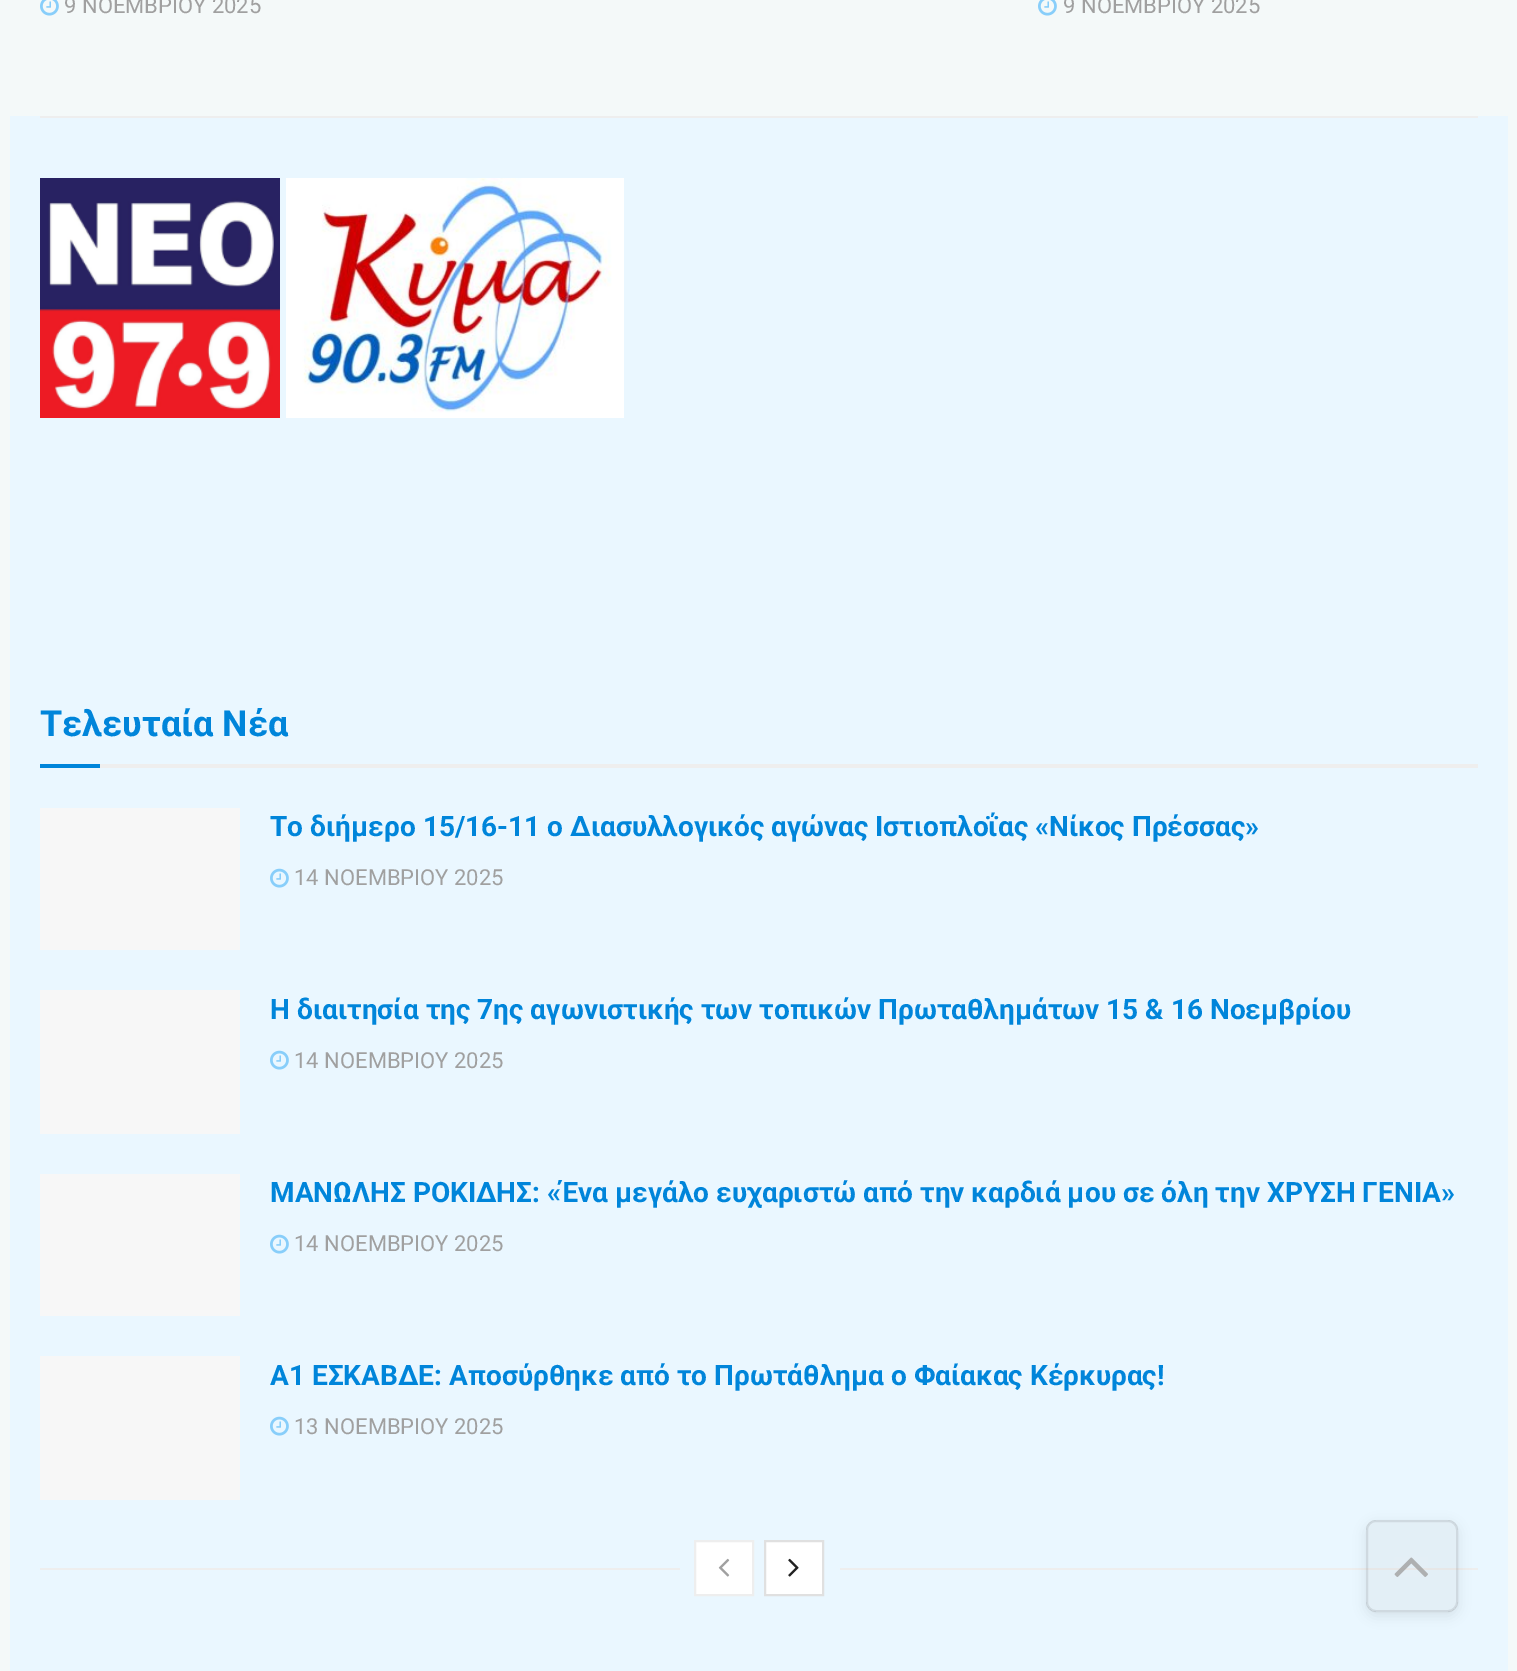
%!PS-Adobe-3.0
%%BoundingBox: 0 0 1517 1671
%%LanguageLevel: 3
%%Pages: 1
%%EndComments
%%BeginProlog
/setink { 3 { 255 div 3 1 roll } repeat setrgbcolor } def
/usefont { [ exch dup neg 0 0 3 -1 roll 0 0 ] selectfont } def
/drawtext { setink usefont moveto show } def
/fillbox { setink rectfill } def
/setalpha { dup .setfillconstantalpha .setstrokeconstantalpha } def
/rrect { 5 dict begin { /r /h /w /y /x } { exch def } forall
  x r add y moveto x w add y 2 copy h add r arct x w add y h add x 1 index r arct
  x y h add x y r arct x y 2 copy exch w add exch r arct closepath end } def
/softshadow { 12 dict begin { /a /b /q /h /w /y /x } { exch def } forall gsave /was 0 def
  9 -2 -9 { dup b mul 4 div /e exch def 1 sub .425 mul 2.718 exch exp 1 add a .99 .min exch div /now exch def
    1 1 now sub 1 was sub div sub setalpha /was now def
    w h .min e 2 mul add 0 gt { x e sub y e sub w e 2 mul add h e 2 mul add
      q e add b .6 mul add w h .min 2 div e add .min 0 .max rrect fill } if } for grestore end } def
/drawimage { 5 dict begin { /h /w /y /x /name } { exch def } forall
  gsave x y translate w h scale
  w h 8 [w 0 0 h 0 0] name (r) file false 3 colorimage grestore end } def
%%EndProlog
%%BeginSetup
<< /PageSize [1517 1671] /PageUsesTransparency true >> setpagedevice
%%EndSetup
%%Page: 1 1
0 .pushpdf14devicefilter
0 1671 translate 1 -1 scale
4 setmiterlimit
0 0 1517 1671 244 249 249 fillbox
(assets/img1.rgb) 40 0 19 16 drawimage
(9 ΝΟΕΜΒΡΙΟΥ 2025) 64 13 /Roboto-Regular 22 160 160 160 drawtext
(assets/img1.rgb) 1038 0 19 16 drawimage
(9 ΝΟΕΜΒΡΙΟΥ 2025) 1063 13 /Roboto-Regular 22 160 160 160 drawtext
10 116 1498 1555 234 247 255 fillbox
40 116 1438 2 238 238 238 fillbox
(assets/img2.rgb) 40 178 240 240 drawimage
(assets/img3.rgb) 286 178 338 240 drawimage
100 764 1378 4 238 238 238 fillbox
(Τελευταία Νέα) 40 736 /Roboto-Bold 36 0 133 218 drawtext
40 764 60 4 0 133 218 fillbox
40 808 200 142 247 247 247 fillbox
(Το διήμερο 15/16-11 ο Διασυλλογικός αγώνας Ιστιοπλοΐας «Νίκος Πρέσσας») 270 836 /Roboto-Bold 28 0 133 218 drawtext
(assets/img4.rgb) 270 868 19 20 drawimage
(14 ΝΟΕΜΒΡΙΟΥ 2025) 294 885 /Roboto-Regular 22 160 160 160 drawtext
40 990 200 144 247 247 247 fillbox
(Η διαιτησία της 7ης αγωνιστικής των τοπικών Πρωταθλημάτων 15 & 16 Νοεμβρίου) 270 1019 /Roboto-Bold 28 0 133 218 drawtext
(assets/img4.rgb) 270 1050 19 20 drawimage
(14 ΝΟΕΜΒΡΙΟΥ 2025) 294 1068 /Roboto-Regular 22 160 160 160 drawtext
40 1174 200 142 247 247 247 fillbox
(ΜΑΝΩΛΗΣ ΡΟΚΙΔΗΣ: «Ένα μεγάλο ευχαριστώ από την καρδιά μου σε όλη την ΧΡΥΣΗ ΓΕΝΙΑ») 270 1202 /Roboto-Bold 28 0 133 218 drawtext
(assets/img4.rgb) 270 1234 19 20 drawimage
(14 ΝΟΕΜΒΡΙΟΥ 2025) 294 1251 /Roboto-Regular 22 160 160 160 drawtext
40 1356 200 144 247 247 247 fillbox
(Α1 ΕΣΚΑΒΔΕ: Αποσύρθηκε από το Πρωτάθλημα ο Φαίακας Κέρκυρας!) 270 1385 /Roboto-Bold 28 0 133 218 drawtext
(assets/img4.rgb) 270 1416 19 20 drawimage
(13 ΝΟΕΜΒΡΙΟΥ 2025) 294 1434 /Roboto-Regular 22 160 160 160 drawtext
40 1568 640 2 238 238 238 fillbox
255 255 255 setink
695 1541 moveto 753 1541 lineto 753 1595 lineto 695 1595 lineto closepath gsave fill grestore
238 238 238 setink
2 setlinewidth
stroke
(assets/img5.rgb) 718 1558 12 19 drawimage
255 255 255 setink
765 1541 moveto 823 1541 lineto 823 1595 lineto 765 1595 lineto closepath gsave fill grestore
224 224 224 setink
stroke
(assets/img6.rgb) 788 1558 11 19 drawimage
840 1568 638 2 238 238 238 fillbox
gsave
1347 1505 moveto 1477 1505 lineto 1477 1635 lineto 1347 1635 lineto closepath 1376 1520 moveto 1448 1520 lineto 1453.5 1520 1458 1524.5 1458 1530 curveto 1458 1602 lineto 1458 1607.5 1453.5 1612 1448 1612 curveto 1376 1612 lineto 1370.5 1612 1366 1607.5 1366 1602 curveto 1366 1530 lineto 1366 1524.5 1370.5 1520 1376 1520 curveto closepath eoclip newpath
0 0 0 setink
1366 1524 92 92 10 6 0.08 softshadow
grestore
0.12 setalpha
180 180 180 setink
1366 1520 92 92 10 rrect fill
0.09 setalpha
0 0 0 setink
1367 1521 90 90 9 rrect stroke
1 setalpha
(assets/img7.rgb) 1394 1557 34 20 drawimage
.poppdf14devicefilter showpage
%%EOF
